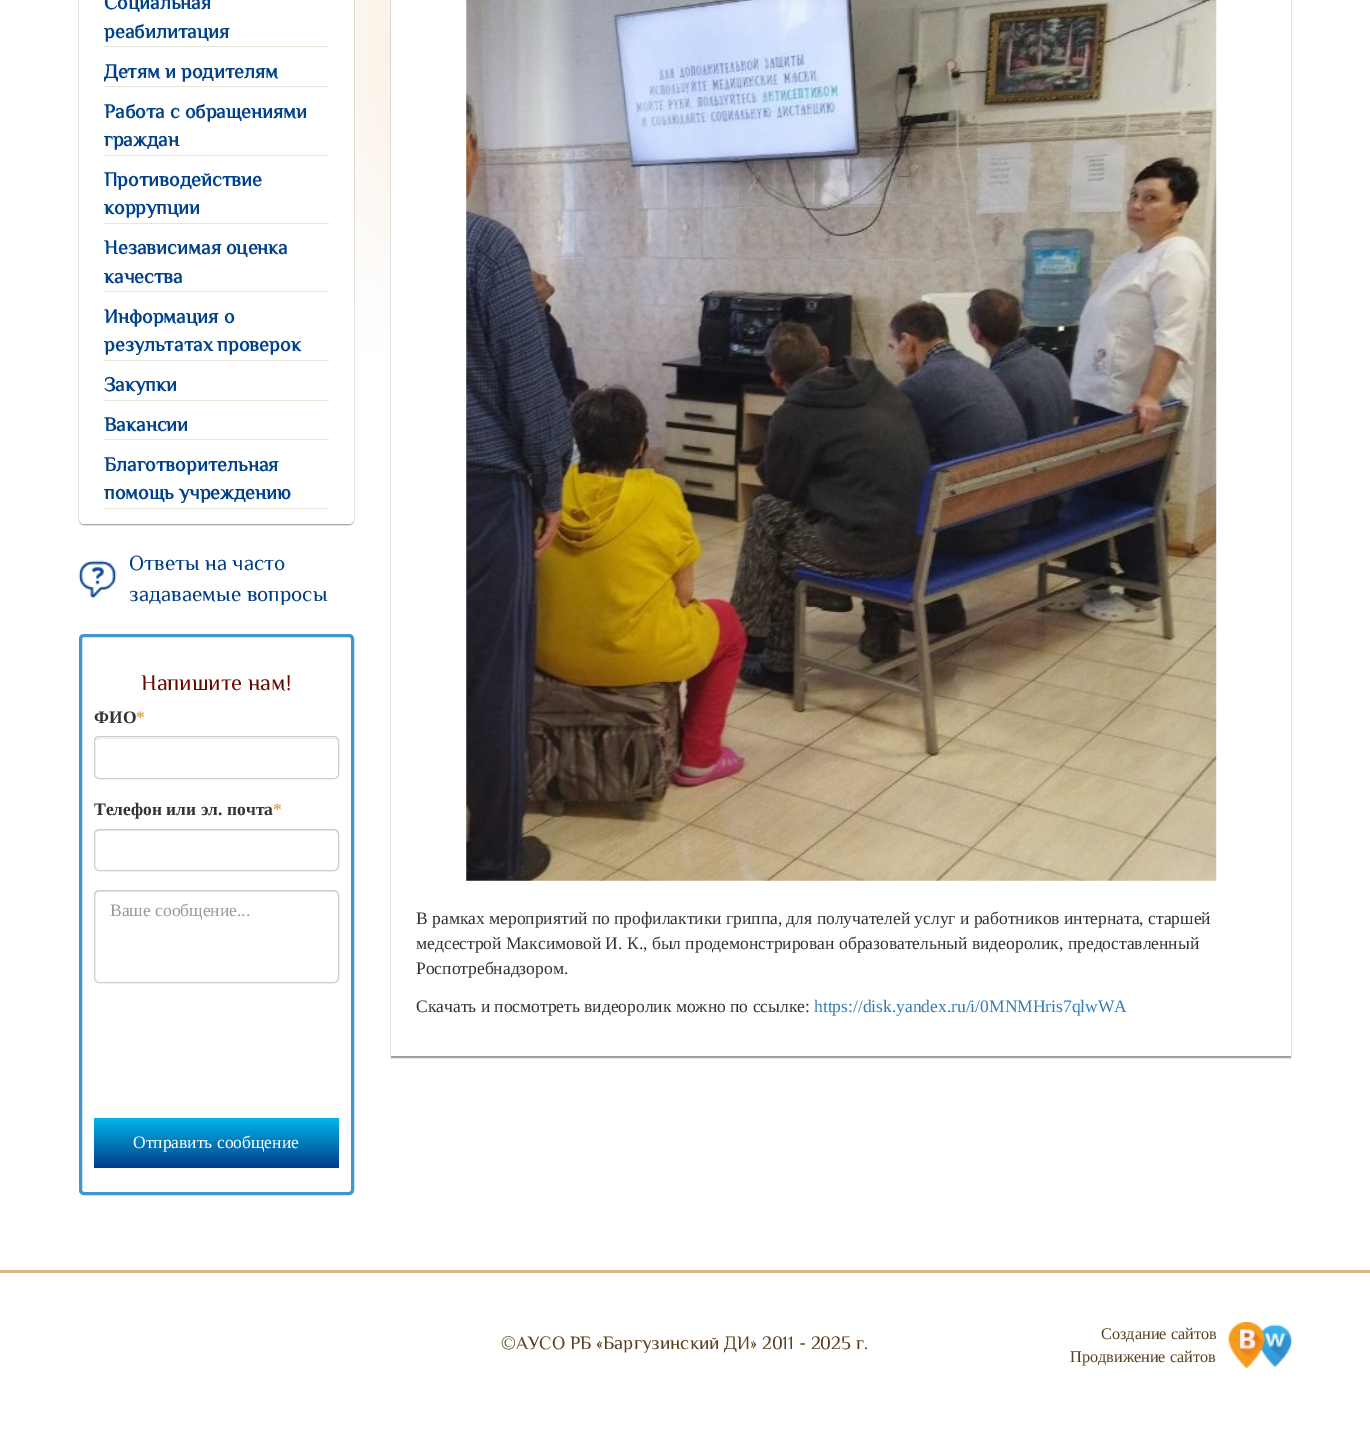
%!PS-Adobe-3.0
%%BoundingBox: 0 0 1370 1431
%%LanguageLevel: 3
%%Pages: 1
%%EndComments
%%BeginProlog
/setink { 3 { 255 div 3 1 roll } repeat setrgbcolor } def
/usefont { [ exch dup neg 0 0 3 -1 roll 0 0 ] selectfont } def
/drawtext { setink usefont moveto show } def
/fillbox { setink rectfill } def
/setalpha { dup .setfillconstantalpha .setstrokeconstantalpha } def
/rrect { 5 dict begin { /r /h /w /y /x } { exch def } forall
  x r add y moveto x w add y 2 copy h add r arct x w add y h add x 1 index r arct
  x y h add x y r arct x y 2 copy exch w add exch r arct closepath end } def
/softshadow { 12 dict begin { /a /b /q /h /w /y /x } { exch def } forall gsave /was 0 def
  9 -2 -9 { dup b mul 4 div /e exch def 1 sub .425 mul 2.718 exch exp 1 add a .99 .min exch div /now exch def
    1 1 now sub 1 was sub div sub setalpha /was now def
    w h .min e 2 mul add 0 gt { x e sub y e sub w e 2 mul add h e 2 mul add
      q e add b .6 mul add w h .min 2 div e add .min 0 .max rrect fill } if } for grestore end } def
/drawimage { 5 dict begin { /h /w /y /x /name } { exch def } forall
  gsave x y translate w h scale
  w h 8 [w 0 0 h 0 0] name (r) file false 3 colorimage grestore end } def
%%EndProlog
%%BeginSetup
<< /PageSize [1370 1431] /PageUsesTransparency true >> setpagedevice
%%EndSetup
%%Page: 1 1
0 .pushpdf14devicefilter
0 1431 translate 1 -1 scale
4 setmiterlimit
0 0 1370 1431 255 255 255 fillbox
(assets/img1.rgb) 354 0 37 356 drawimage
50 50 50 setink
79 -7 275 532 5 0.5 0.5 softshadow
255 255 255 setink
79 -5 275 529 5 rrect fill
104 46 225 1 231 231 217 fillbox
(Социальная) 104 9 /Philosopher-Bold 20 1 66 138 drawtext
(реабилитация) 104 38 /Philosopher-Bold 20 1 66 138 drawtext
104 86 225 1 231 231 217 fillbox
(Детям и родителям) 104 78 /Philosopher-Bold 20 1 66 138 drawtext
104 155 225 1 231 231 217 fillbox
(Работа с обращениями) 104 118 /Philosopher-Bold 20 1 66 138 drawtext
(граждан) 104 146 /Philosopher-Bold 20 1 66 138 drawtext
104 223 225 1 231 231 217 fillbox
(Противодействие) 104 186 /Philosopher-Bold 20 1 66 138 drawtext
(коррупции) 104 214 /Philosopher-Bold 20 1 66 138 drawtext
104 291 225 1 231 231 217 fillbox
(Независимая оценка) 104 254 /Philosopher-Bold 20 1 66 138 drawtext
(качества) 104 283 /Philosopher-Bold 20 1 66 138 drawtext
104 360 225 1 231 231 217 fillbox
(Информация о) 104 323 /Philosopher-Bold 20 1 66 138 drawtext
(результатах проверок) 104 351 /Philosopher-Bold 20 1 66 138 drawtext
104 400 225 1 231 231 217 fillbox
(Закупки) 104 391 /Philosopher-Bold 20 1 66 138 drawtext
104 439 225 1 231 231 217 fillbox
(Вакансии) 104 431 /Philosopher-Bold 20 1 66 138 drawtext
104 508 225 1 231 231 217 fillbox
(Благотворительная) 104 471 /Philosopher-Bold 20 1 66 138 drawtext
(помощь учреждению) 104 499 /Philosopher-Bold 20 1 66 138 drawtext
(assets/img2.rgb) 78 560 39 39 drawimage
(Ответы на часто) 129 570 /Philosopher-Regular 21.25 1 60 133 drawtext
(задаваемые вопросы) 129 601 /Philosopher-Regular 21.25 1 60 133 drawtext
64 151 205 setink
3 setlinewidth
80.5 635.5 272 558 3.5 rrect stroke
(Напишите нам!) 141 690 /Philosopher-Regular 22.5 105 10 0 drawtext
(ФИО) 94 723 /LiberationSerif-Bold 17.5 51 51 51 drawtext
(*) 136 723 /LiberationSerif-Bold 17.5 231 164 75 drawtext
236 236 236 setink
99 739 moveto 334 739 lineto 336 739 338 740 338 742 curveto 338 740 336 738 334 738 curveto 99 738 lineto 97 738 95 740 95 742 curveto 95 740 97 739 99 739 curveto closepath fill
204 204 204 setink
1 setlinewidth
94.5 736.5 244 42 4.5 rrect stroke
(Телефон или эл. почта) 94 815 /LiberationSerif-Bold 17.5 51 51 51 drawtext
(*) 273 815 /LiberationSerif-Bold 17.5 231 164 75 drawtext
236 236 236 setink
99 831 moveto 334 831 lineto 336 831 338 833 338 835 curveto 338 834 lineto 338 832 336 830 334 830 curveto 99 830 lineto 97 830 95 832 95 834 curveto 95 835 lineto 95 833 97 831 99 831 curveto closepath fill
204 204 204 setink
94.5 829.5 244 41 4.5 rrect stroke
236 236 236 setink
99 892 moveto 334 892 lineto 336 892 338 894 338 896 curveto 338 895 lineto 338 893 336 891 334 891 curveto 99 891 lineto 97 891 95 893 95 895 curveto 95 896 lineto 95 894 97 892 99 892 curveto closepath fill
204 204 204 setink
94.5 890.5 244 92 4.5 rrect stroke
(Ваше сообщение...) 110 916 /LiberationSerif-Regular 17.5 153 153 153 drawtext
gsave 94 1118 245 50 1 rrect clip newpath
<< /ShadingType 2 /ColorSpace /DeviceRGB /Coords [216 1118 216 1168] /Extend [true true] /Function << /FunctionType 2 /Domain [0 1] /C0 [0.004 0.718 0.925] /C1 [0.004 0.239 0.525] /N 1 >> >> shfill grestore
(Отправить сообщение) 133 1148 /LiberationSerif-Regular 17.5 255 255 255 drawtext
50 50 50 setink
391 -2 900 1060 0 0.5 0.5 softshadow
391 0 900 1056 255 255 255 fillbox
(assets/img3.rgb) 466 0 751 881 drawimage
(В рамках мероприятий по профилактики гриппа, для получателей услуг и работников интерната, старшей) 416 924 /LiberationSerif-Regular 17.5 51 51 51 drawtext
(медсестрой Максимовой И. К., был продемонстрирован образовательный видеоролик, предоставленный) 416 949 /LiberationSerif-Regular 17.5 51 51 51 drawtext
(Роспотребнадзором.) 416 974 /LiberationSerif-Regular 17.5 51 51 51 drawtext
(Скачать и посмотреть видеоролик можно по ссылке:) 416 1012 /LiberationSerif-Regular 17.5 51 51 51 drawtext
(https://disk.yandex.ru/i/0MNMHris7qlwWA) 814 1012 /LiberationSerif-Regular 17.5 51 122 183 drawtext
0 1270 1370 3 219 181 136 fillbox
(©АУСО РБ «Баргузинский ДИ» 2011 - 2025 г.) 501 1349 /Philosopher-Regular 18.75 88 65 31 drawtext
(Создание сайтов) 1101 1339 /LiberationSerif-Regular 16.25 88 65 31 drawtext
(Продвижение сайтов) 1070 1362 /LiberationSerif-Regular 16.25 88 65 31 drawtext
(assets/img4.rgb) 1228 1322 64 47 drawimage
.poppdf14devicefilter showpage
%%EOF
